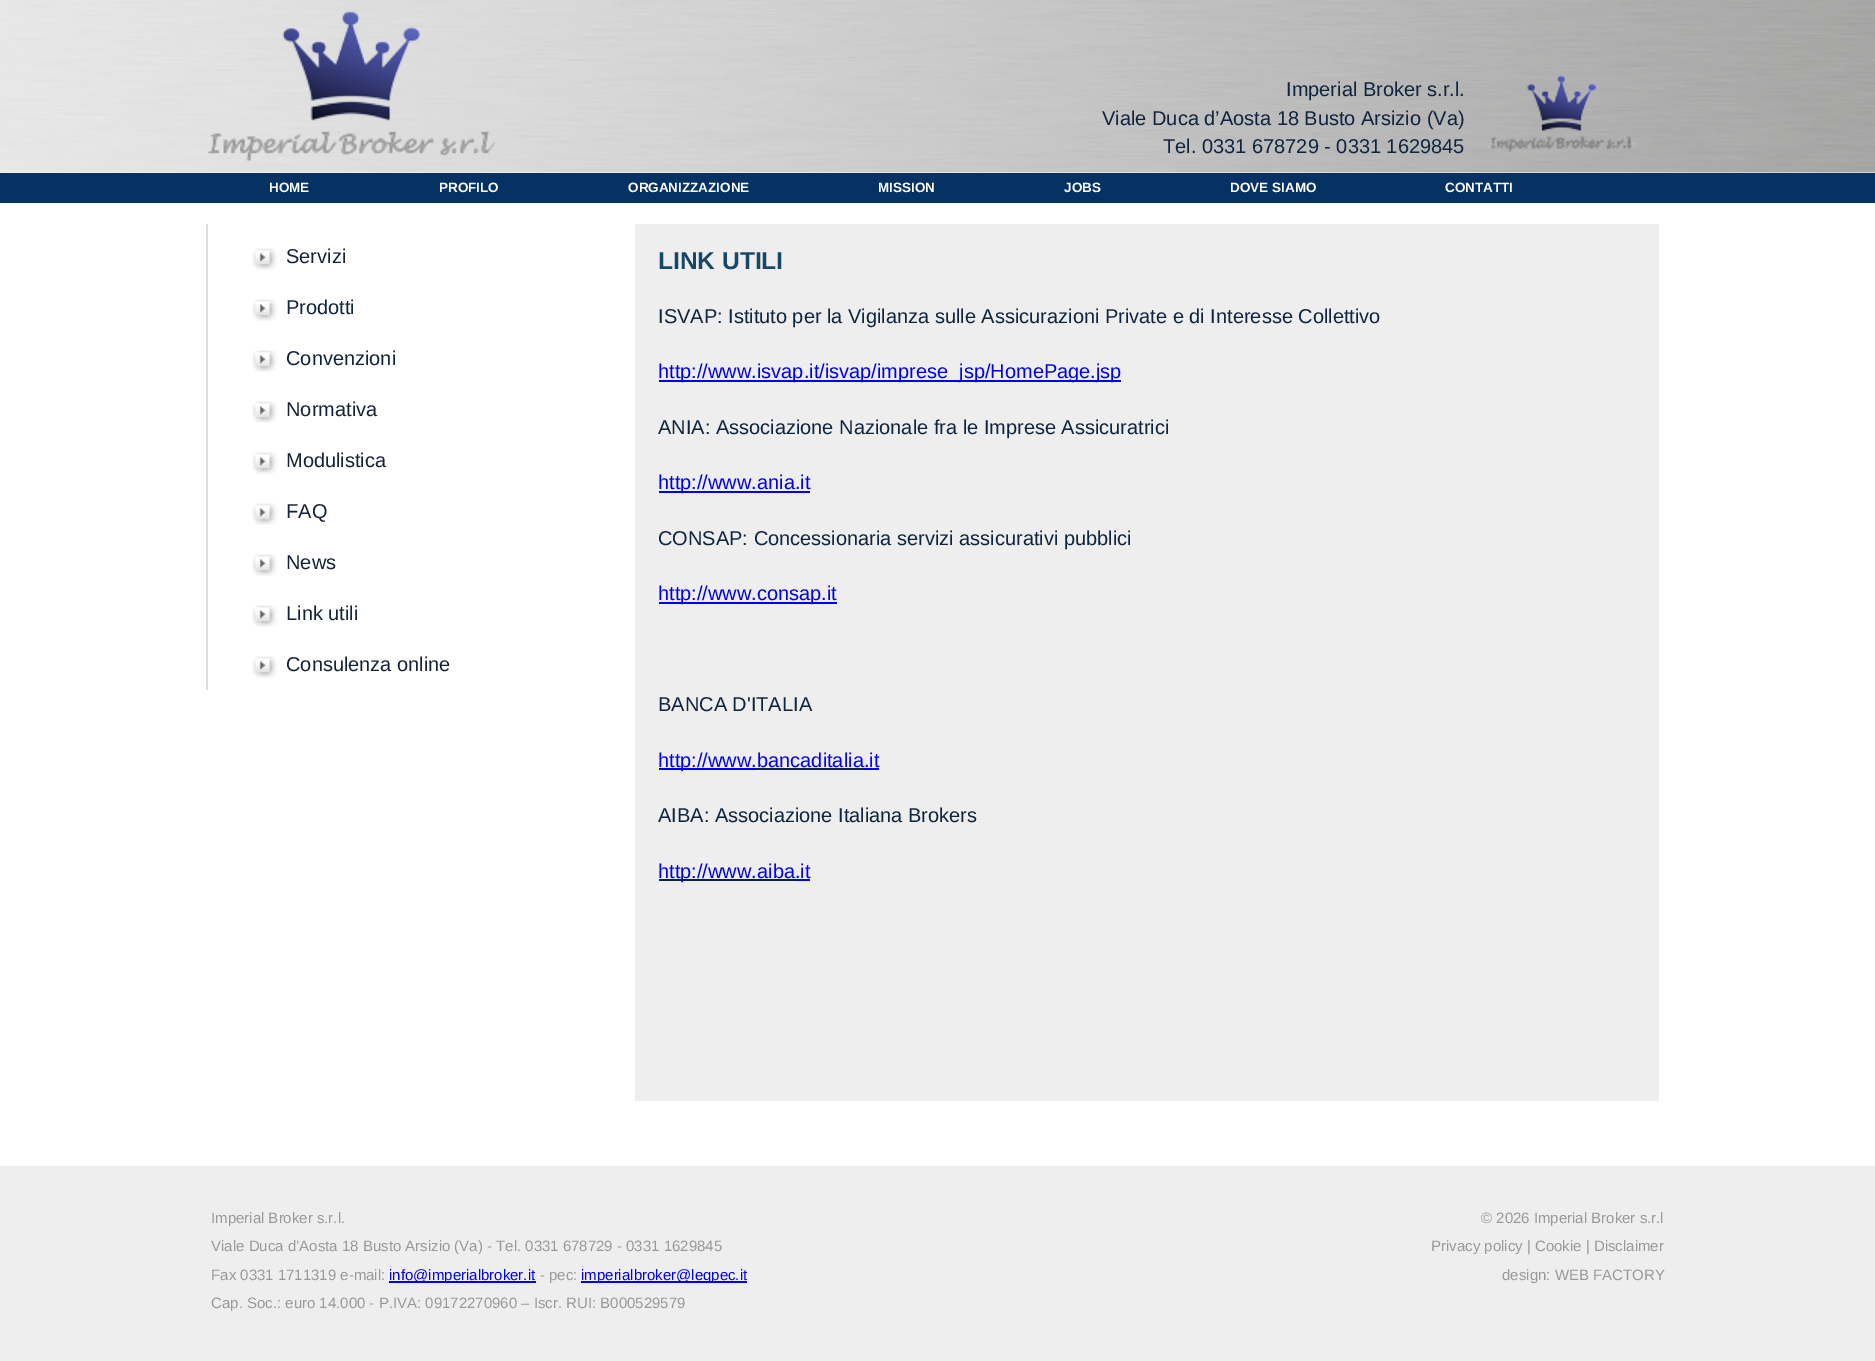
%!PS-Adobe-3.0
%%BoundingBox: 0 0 1875 1361
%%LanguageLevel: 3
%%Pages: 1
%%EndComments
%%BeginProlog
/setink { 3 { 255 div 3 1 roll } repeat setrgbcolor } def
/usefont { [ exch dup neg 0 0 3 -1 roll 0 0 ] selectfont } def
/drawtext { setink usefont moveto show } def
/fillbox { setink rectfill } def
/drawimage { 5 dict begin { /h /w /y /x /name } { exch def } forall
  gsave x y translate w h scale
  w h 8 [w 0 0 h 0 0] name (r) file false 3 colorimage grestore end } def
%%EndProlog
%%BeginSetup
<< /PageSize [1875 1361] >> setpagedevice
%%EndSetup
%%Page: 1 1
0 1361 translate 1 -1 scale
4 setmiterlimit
0 0 1875 1361 255 255 255 fillbox
(assets/img1.rgb) 0 0 1875 173 drawimage
(assets/img2.rgb) 207 11 289 150 drawimage
(Imperial Broker s.r.l.) 1286 96 /LiberationSans-Regular 20 15 36 62 drawtext
(assets/img3.rgb) 1488 75 147 77 drawimage
(Viale Duca d’Aosta 18 Busto Arsizio \(Va\)) 1102 125 /LiberationSans-Regular 20 15 36 62 drawtext
(Tel. 0331 678729 - 0331 1629845) 1163 153 /LiberationSans-Regular 20 15 36 62 drawtext
0 173 1875 30 6 50 99 fillbox
(HOME) 269 192 /LiberationSans-Bold 13.5 255 255 255 drawtext
(PROFILO) 439 192 /LiberationSans-Bold 13.5 255 255 255 drawtext
(ORGANIZZAZIONE) 628 192 /LiberationSans-Bold 13.5 255 255 255 drawtext
(MISSION) 878 192 /LiberationSans-Bold 13.5 255 255 255 drawtext
(JOBS) 1064 192 /LiberationSans-Bold 13.5 255 255 255 drawtext
(DOVE SIAMO) 1230 192 /LiberationSans-Bold 13.5 255 255 255 drawtext
(CONTATTI) 1445 192 /LiberationSans-Bold 13.5 255 255 255 drawtext
206 224 2 466 221 221 221 fillbox
(assets/img4.rgb) 252 248 26 22 drawimage
(Servizi) 286 263 /LiberationSans-Regular 20 22 35 54 drawtext
(assets/img4.rgb) 252 299 26 22 drawimage
(Prodotti) 286 314 /LiberationSans-Regular 20 15 36 62 drawtext
(assets/img4.rgb) 252 350 26 22 drawimage
(Convenzioni) 286 365 /LiberationSans-Regular 20 15 36 62 drawtext
(assets/img4.rgb) 252 401 26 22 drawimage
(Normativa) 286 416 /LiberationSans-Regular 20 22 35 54 drawtext
(assets/img4.rgb) 252 452 26 22 drawimage
(Modulistica) 286 467 /LiberationSans-Regular 20 22 35 54 drawtext
(assets/img4.rgb) 252 503 26 22 drawimage
(FAQ) 286 518 /LiberationSans-Regular 20 22 35 54 drawtext
(assets/img4.rgb) 252 554 26 22 drawimage
(News) 286 569 /LiberationSans-Regular 20 22 35 54 drawtext
(assets/img4.rgb) 252 605 26 22 drawimage
(Link utili) 286 620 /LiberationSans-Regular 20 22 35 54 drawtext
(assets/img4.rgb) 252 656 26 22 drawimage
(Consulenza online) 286 671 /LiberationSans-Regular 20 22 35 54 drawtext
635 224 1024 877 238 238 238 fillbox
(LINK UTILI) 658 269 /LiberationSans-Bold 24.5 23 72 102 drawtext
(ISVAP: Istituto per la Vigilanza sulle Assicurazioni Private e di Interesse Collettivo) 658 323 /LiberationSans-Regular 20 15 36 62 drawtext
659 380 462 2 0 0 238 fillbox
(http://www.isvap.it/isvap/imprese_jsp/HomePage.jsp) 658 378 /LiberationSans-Regular 20 0 0 238 drawtext
(ANIA: Associazione Nazionale fra le Imprese Assicuratrici) 658 434 /LiberationSans-Regular 20 15 36 62 drawtext
659 491 151 2 0 0 238 fillbox
(http://www.ania.it) 658 489 /LiberationSans-Regular 20 0 0 238 drawtext
(CONSAP: Concessionaria servizi assicurativi pubblici) 658 545 /LiberationSans-Regular 20 15 36 62 drawtext
659 602 178 2 0 0 238 fillbox
(http://www.consap.it) 658 600 /LiberationSans-Regular 20 0 0 238 drawtext
(BANCA D'ITALIA) 658 711 /LiberationSans-Regular 20 15 36 62 drawtext
659 768 97 2 0 0 238 fillbox
(http://www.bancaditalia.it) 658 767 /LiberationSans-Regular 20 0 0 255 drawtext
756 768 108 2 15 36 62 fillbox
864 768 15 2 0 0 238 fillbox
(AIBA: Associazione Italiana Brokers) 658 822 /LiberationSans-Regular 20 15 36 62 drawtext
659 879 136 2 15 36 62 fillbox
(http://www.) 658 878 /LiberationSans-Regular 20 0 0 238 drawtext
(aiba.it) 757 878 /LiberationSans-Regular 20 0 0 255 drawtext
795 879 15 2 0 0 238 fillbox
0 1166 1875 195 238 238 238 fillbox
(Imperial Broker s.r.l.) 211 1223 /LiberationSans-Regular 15 153 153 153 drawtext
(Viale Duca d’Aosta 18 Busto Arsizio \(Va\) - Tel. 0331 678729 - 0331 1629845) 211 1251 /LiberationSans-Regular 15 153 153 153 drawtext
(Fax 0331 1711319 e-mail:) 211 1280 /LiberationSans-Regular 15 153 153 153 drawtext
389 1281 147 2 0 0 238 fillbox
(info@imperialbroker.it) 389 1280 /LiberationSans-Regular 15 0 0 238 drawtext
(- pec:) 540 1280 /LiberationSans-Regular 15 153 153 153 drawtext
581 1281 166 2 0 0 238 fillbox
(imperialbroker@legpec.it) 581 1280 /LiberationSans-Regular 15 0 0 238 drawtext
(Cap. Soc.: euro 14.000 - P.IVA: 09172270960 – Iscr. RUI: B000529579) 211 1308 /LiberationSans-Regular 15 153 153 153 drawtext
(© 2026 Imperial Broker s.r.l) 1481 1223 /LiberationSans-Regular 15 153 153 153 drawtext
(Privacy policy | Cookie | Disclaimer) 1431 1251 /LiberationSans-Regular 15 153 153 153 drawtext
(design: WEB FACTORY) 1502 1280 /LiberationSans-Regular 15 153 153 153 drawtext
showpage
%%EOF
